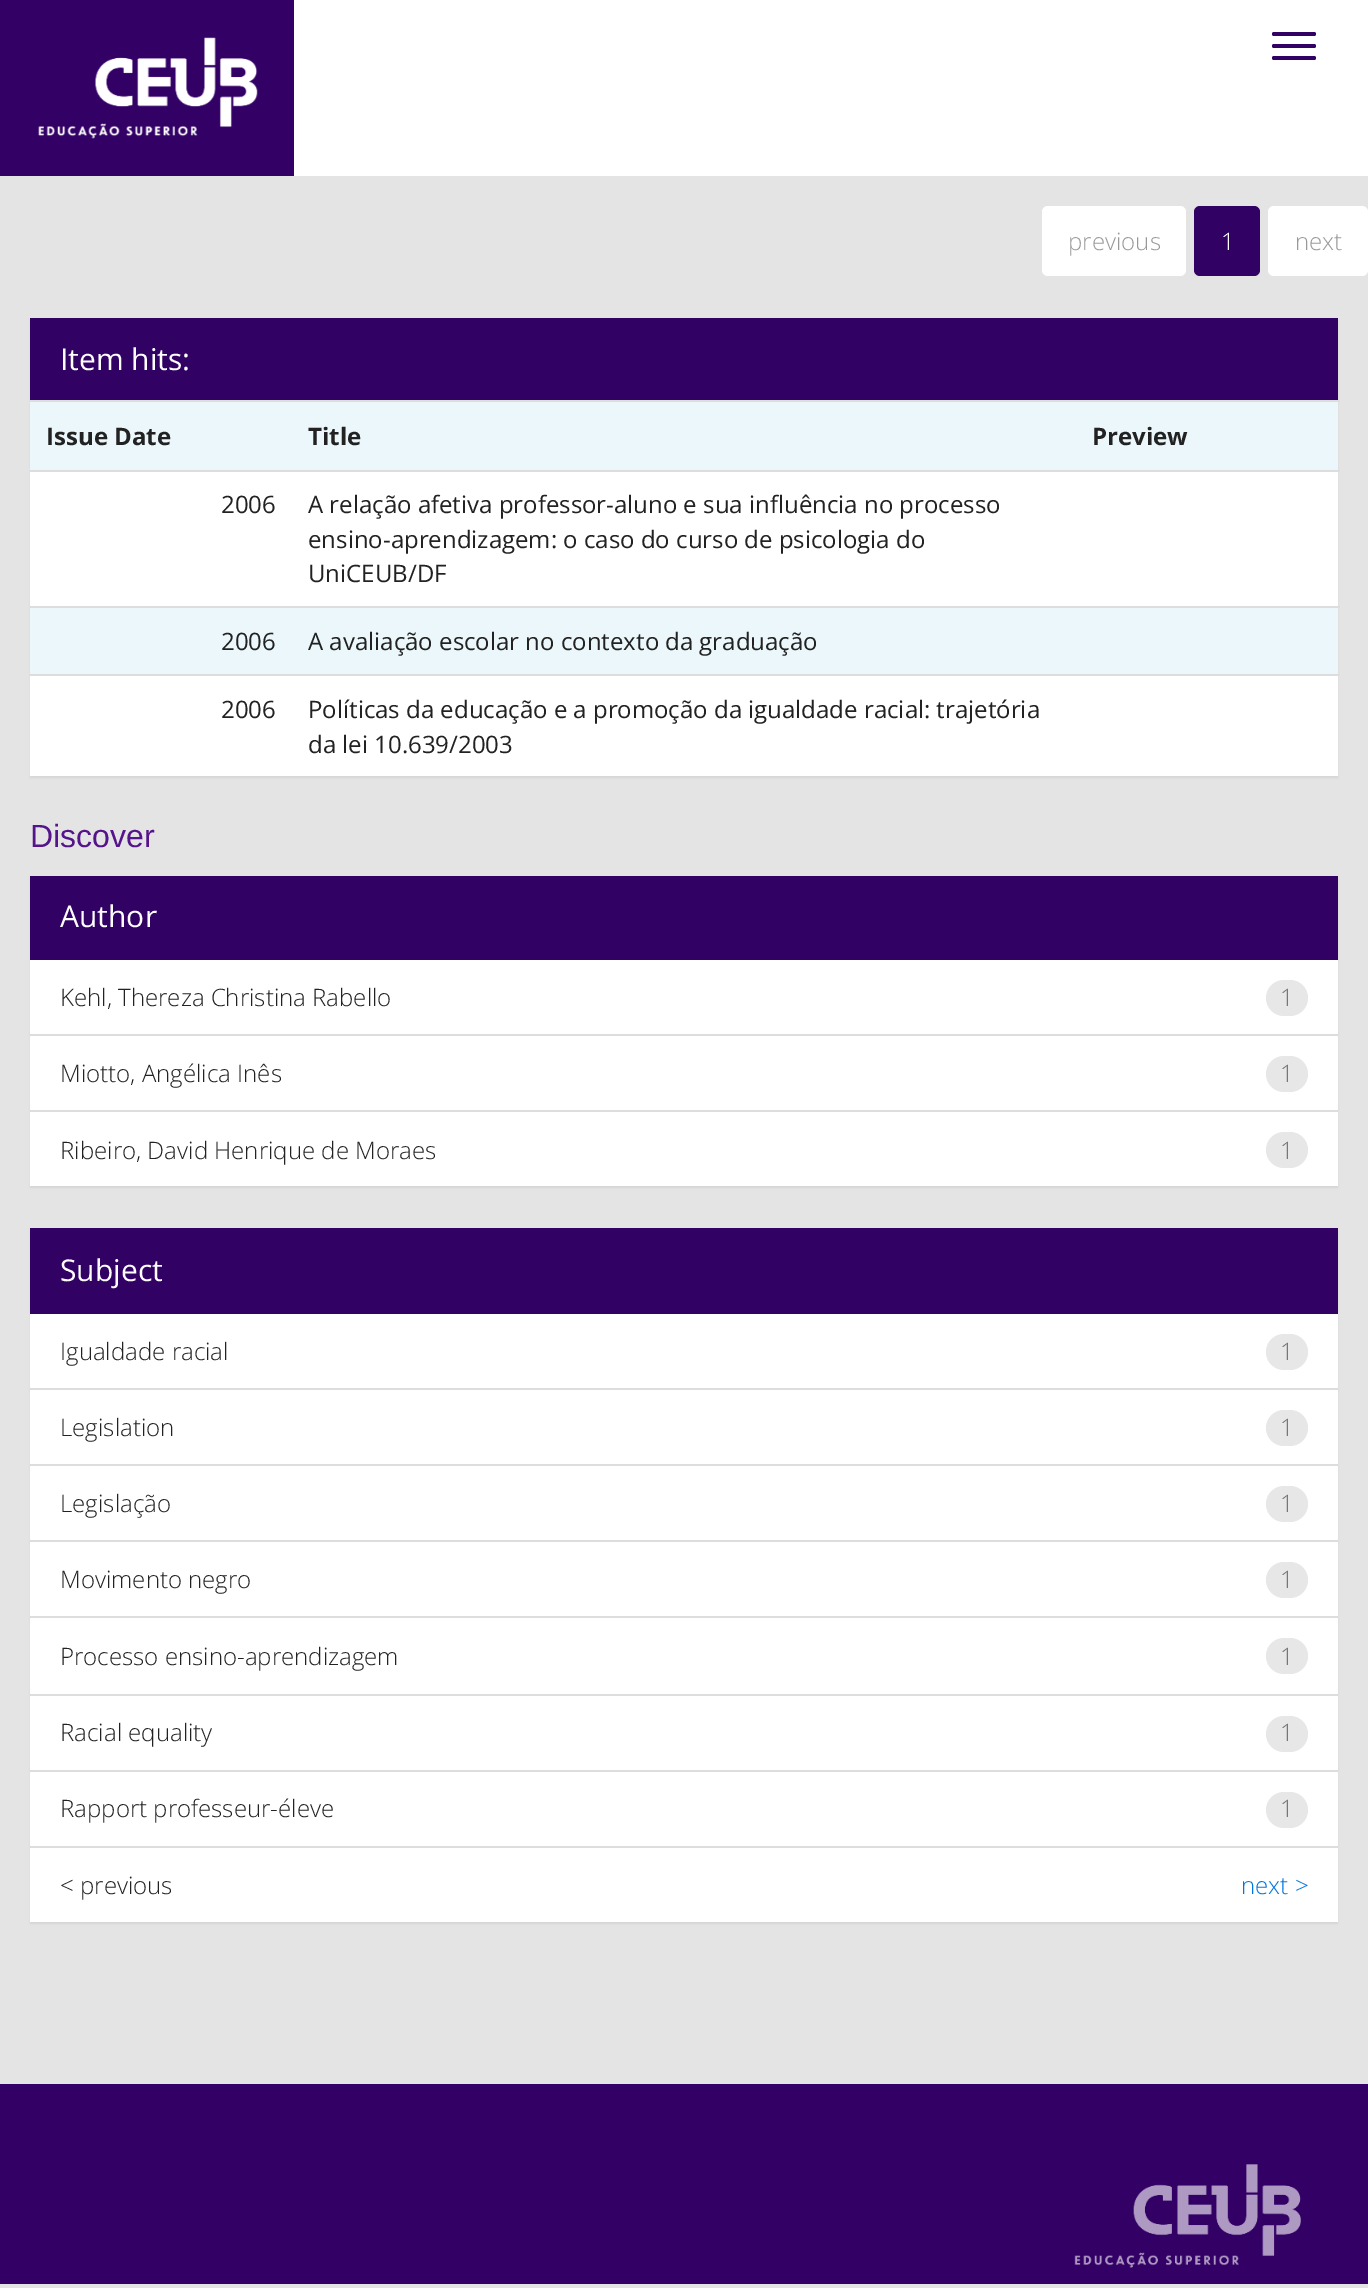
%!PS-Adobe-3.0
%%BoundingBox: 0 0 1368 2288
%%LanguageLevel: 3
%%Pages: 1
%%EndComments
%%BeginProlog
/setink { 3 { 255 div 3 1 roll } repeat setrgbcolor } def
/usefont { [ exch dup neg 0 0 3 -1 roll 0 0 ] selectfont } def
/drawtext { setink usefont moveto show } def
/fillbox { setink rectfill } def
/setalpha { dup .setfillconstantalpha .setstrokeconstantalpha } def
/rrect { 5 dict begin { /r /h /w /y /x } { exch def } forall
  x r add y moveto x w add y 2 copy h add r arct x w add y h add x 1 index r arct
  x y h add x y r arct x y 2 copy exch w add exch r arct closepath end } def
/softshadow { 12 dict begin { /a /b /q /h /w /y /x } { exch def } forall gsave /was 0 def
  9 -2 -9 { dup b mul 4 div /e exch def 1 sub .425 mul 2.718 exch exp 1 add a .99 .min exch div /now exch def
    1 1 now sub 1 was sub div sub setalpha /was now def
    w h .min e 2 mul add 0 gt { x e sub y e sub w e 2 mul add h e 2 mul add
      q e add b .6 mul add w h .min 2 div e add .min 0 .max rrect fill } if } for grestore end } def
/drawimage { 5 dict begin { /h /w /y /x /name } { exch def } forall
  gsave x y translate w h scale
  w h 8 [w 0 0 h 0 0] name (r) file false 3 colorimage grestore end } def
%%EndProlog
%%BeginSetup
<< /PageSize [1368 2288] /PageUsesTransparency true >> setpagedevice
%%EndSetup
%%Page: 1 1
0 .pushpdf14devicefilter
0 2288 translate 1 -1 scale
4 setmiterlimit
0 0 1368 2288 228 228 228 fillbox
294 0 1074 176 255 255 255 fillbox
0 0 294 176 51 0 102 fillbox
(assets/img1.rgb) 38 37 220 102 drawimage
50 1 100 setink
1272 32 44 4 2 rrect fill
1272 44 44 4 2 rrect fill
1272 56 44 4 2 rrect fill
255 255 255 setink
1042 206 144 70 6 rrect fill
(previous) 1068 250 /OpenSans-Light 24 153 153 153 drawtext
50 1 100 setink
1194 206 66 70 6 rrect fill
(1) 1221 250 /OpenSans-Light 24 255 255 255 drawtext
1268 206 100 70 6 rrect fill
(next) 1295 250 /OpenSans-Light 24 153 153 153 drawtext
0 0 0 setink
30 320 1308 458 0 1 0.05 softshadow
30 472 1308 304 255 255 255 fillbox
30 318 1308 82 50 1 100 fillbox
(Item hits:) 60 370 /OpenSans-Regular 30 255 255 255 drawtext
30 402 1308 68 235 247 251 fillbox
(Issue Date) 46 445 /OpenSans-Bold 24 34 34 34 drawtext
(Title) 308 445 /OpenSans-Bold 24 34 34 34 drawtext
30 400 1310 2 221 221 221 fillbox
(Preview) 1092 445 /OpenSans-Bold 24 34 34 34 drawtext
30 470 1310 2 221 221 221 fillbox
(2006) 221 513 /OpenSans-Regular 24 34 34 34 drawtext
(A relação afetiva professor-aluno e sua influência no processo) 308 513 /OpenSans-Regular 24 34 34 34 drawtext
(ensino-aprendizagem: o caso do curso de psicologia do) 308 548 /OpenSans-Regular 24 34 34 34 drawtext
(UniCEUB/DF) 308 582 /OpenSans-Regular 24 34 34 34 drawtext
30 606 1310 2 221 221 221 fillbox
30 608 1308 66 235 247 251 fillbox
(2006) 221 650 /OpenSans-Regular 24 34 34 34 drawtext
(A avaliação escolar no contexto da graduação) 308 650 /OpenSans-Regular 24 34 34 34 drawtext
30 674 1310 2 221 221 221 fillbox
(2006) 221 718 /OpenSans-Regular 24 34 34 34 drawtext
(Políticas da educação e a promoção da igualdade racial: trajetória) 308 718 /OpenSans-Regular 24 34 34 34 drawtext
(da lei 10.639/2003) 308 753 /OpenSans-Regular 24 34 34 34 drawtext
(Discover) 30 847 /LiberationSans-Regular 32 86 20 138 drawtext
0 0 0 setink
30 878 1308 310 0 1 0.05 softshadow
30 960 1308 150 255 255 255 fillbox
30 876 1308 84 50 1 100 fillbox
(Author) 60 927 /OpenSans-Regular 30 255 255 255 drawtext
30 1034 1308 2 221 221 221 fillbox
(Kehl, Thereza Christina Rabello) 60 1006 /OpenSans-Light 24 34 34 34 drawtext
231 231 231 setink
1266 980 42 36 18 rrect fill
(1) 1280 1006 /OpenSans-Light 24 119 119 119 drawtext
(Miotto, Angélica Inês) 60 1082 /OpenSans-Light 24 34 34 34 drawtext
231 231 231 setink
1266 1056 42 36 18 rrect fill
(1) 1280 1082 /OpenSans-Light 24 119 119 119 drawtext
30 1112 1308 74 255 255 255 fillbox
30 1110 1308 2 221 221 221 fillbox
(Ribeiro, David Henrique de Moraes) 60 1159 /OpenSans-Light 24 34 34 34 drawtext
231 231 231 setink
1266 1132 42 36 18 rrect fill
(1) 1280 1159 /OpenSans-Light 24 119 119 119 drawtext
0 0 0 setink
30 1230 1308 694 0 1 0.05 softshadow
30 1314 1308 532 255 255 255 fillbox
30 1228 1308 86 50 1 100 fillbox
(Subject) 60 1281 /OpenSans-Regular 30 255 255 255 drawtext
30 1388 1308 2 221 221 221 fillbox
(Igualdade racial) 60 1360 /OpenSans-Light 24 34 34 34 drawtext
231 231 231 setink
1266 1334 42 36 18 rrect fill
(1) 1280 1360 /OpenSans-Light 24 119 119 119 drawtext
30 1464 1308 2 221 221 221 fillbox
(Legislation) 60 1436 /OpenSans-Light 24 34 34 34 drawtext
231 231 231 setink
1266 1410 42 36 18 rrect fill
(1) 1280 1436 /OpenSans-Light 24 119 119 119 drawtext
30 1540 1308 2 221 221 221 fillbox
(Legislação) 60 1512 /OpenSans-Light 24 34 34 34 drawtext
231 231 231 setink
1266 1486 42 36 18 rrect fill
(1) 1280 1512 /OpenSans-Light 24 119 119 119 drawtext
30 1616 1308 2 221 221 221 fillbox
(Movimento negro) 60 1588 /OpenSans-Light 24 34 34 34 drawtext
231 231 231 setink
1266 1562 42 36 18 rrect fill
(1) 1280 1588 /OpenSans-Light 24 119 119 119 drawtext
30 1694 1308 2 221 221 221 fillbox
(Processo ensino-aprendizagem) 60 1665 /OpenSans-Light 24 34 34 34 drawtext
231 231 231 setink
1266 1638 42 36 18 rrect fill
(1) 1280 1665 /OpenSans-Light 24 119 119 119 drawtext
30 1770 1308 2 221 221 221 fillbox
(Racial equality) 60 1741 /OpenSans-Light 24 34 34 34 drawtext
231 231 231 setink
1266 1716 42 36 18 rrect fill
(1) 1280 1741 /OpenSans-Light 24 119 119 119 drawtext
(Rapport professeur-éleve) 60 1817 /OpenSans-Light 24 34 34 34 drawtext
231 231 231 setink
1266 1792 42 36 18 rrect fill
(1) 1280 1817 /OpenSans-Light 24 119 119 119 drawtext
30 1848 1308 74 255 255 255 fillbox
30 1846 1308 2 221 221 221 fillbox
(< previous) 60 1894 /OpenSans-Light 24 34 34 34 drawtext
(next >) 1241 1894 /OpenSans-Light 24 1 116 223 drawtext
0 2084 1368 200 51 0 102 fillbox
(assets/img2.rgb) 1074 2164 227 104 drawimage
.poppdf14devicefilter showpage
%%EOF
